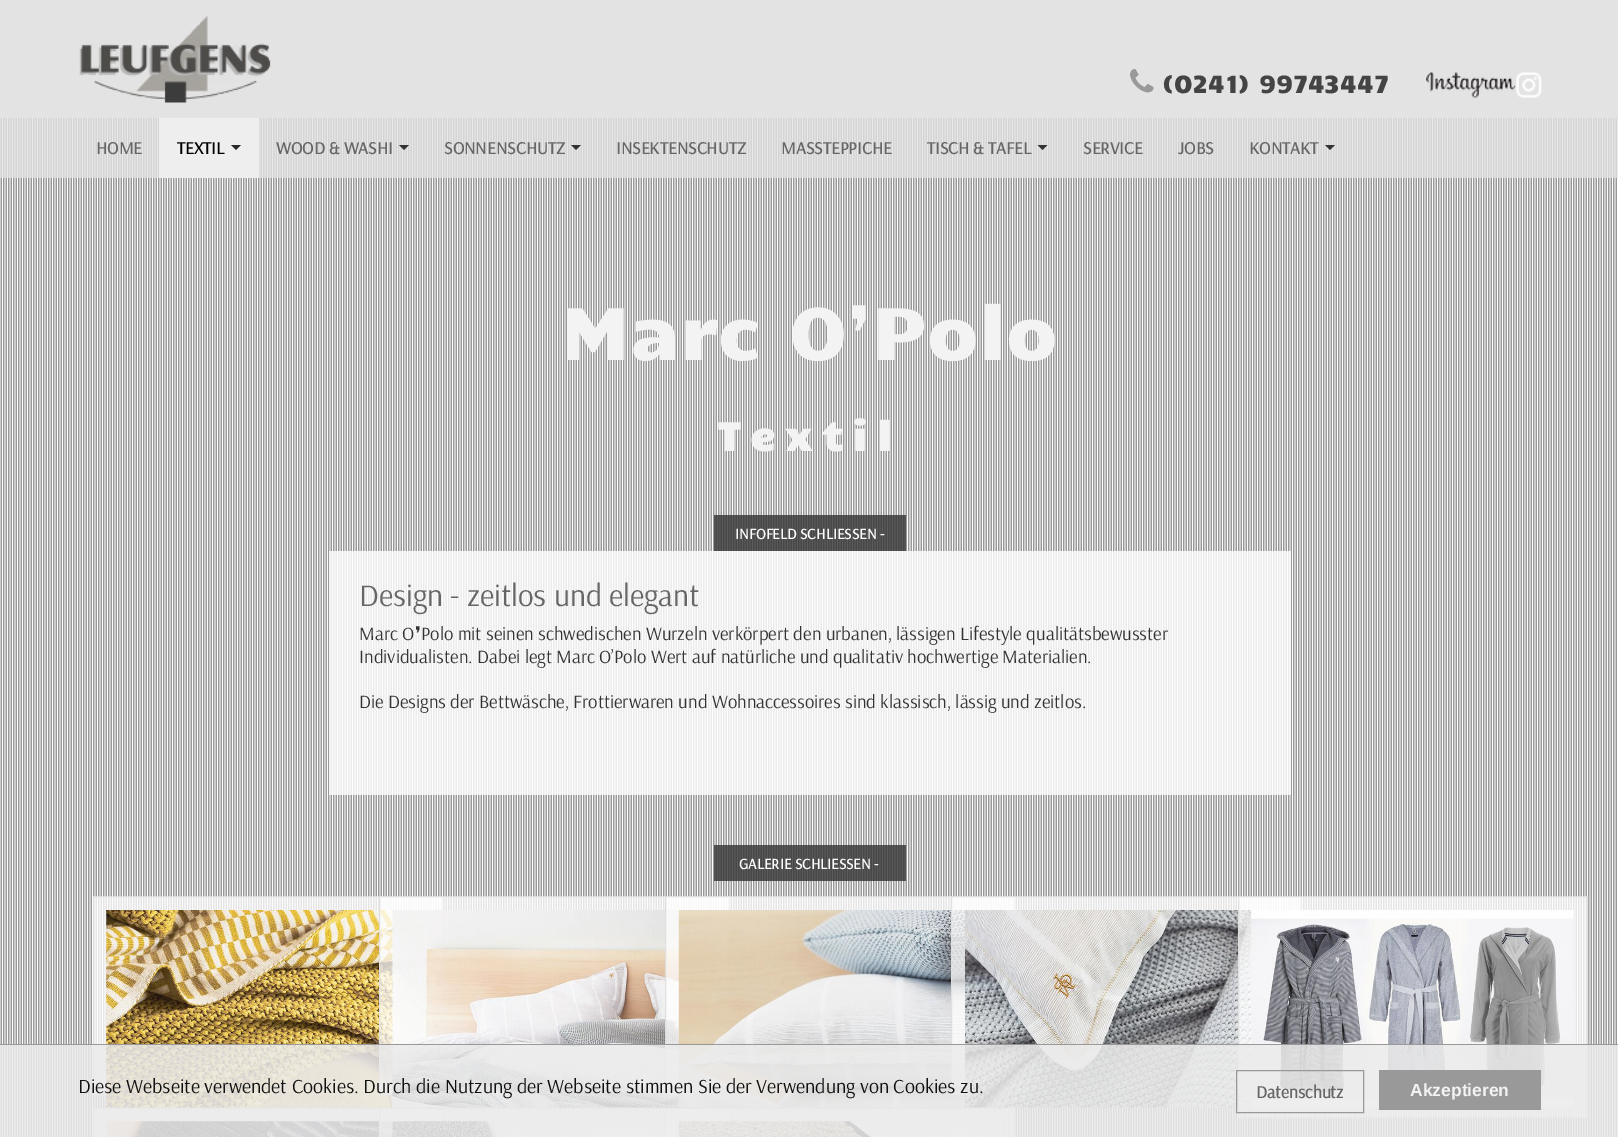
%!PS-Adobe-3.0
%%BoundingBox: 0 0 1618 1137
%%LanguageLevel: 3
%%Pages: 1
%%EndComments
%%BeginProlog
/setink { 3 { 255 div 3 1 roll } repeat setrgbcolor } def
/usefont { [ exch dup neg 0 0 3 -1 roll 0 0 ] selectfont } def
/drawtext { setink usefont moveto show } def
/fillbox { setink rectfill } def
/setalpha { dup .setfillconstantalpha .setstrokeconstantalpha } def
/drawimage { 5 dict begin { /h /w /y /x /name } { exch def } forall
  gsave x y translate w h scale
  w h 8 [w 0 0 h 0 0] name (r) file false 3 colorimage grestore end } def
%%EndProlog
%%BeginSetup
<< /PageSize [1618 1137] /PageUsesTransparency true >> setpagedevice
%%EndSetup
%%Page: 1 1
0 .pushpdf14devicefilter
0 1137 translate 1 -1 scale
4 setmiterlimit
0 0 1618 1137 255 255 255 fillbox
0 0 1618 118 227 227 227 fillbox
(assets/img1.rgb) 79 16 192 87 drawimage
(assets/img2.rgb) 1130 69 24 24 drawimage
(\(0241\) 99743447) 1162 93 /Candal-Regular 25 68 68 68 drawtext
(assets/img3.rgb) 1426 72 116 26 drawimage
(assets/img12.rgb) 0 118 1617 1019 drawimage
0.8 setalpha
0 118 1618 60 227 227 227 fillbox
1 setalpha
(HOME) 96 154 /Arsenal-Bold 17.5 102 102 102 drawtext
159 118 100 60 238 238 238 fillbox
(TEXTIL) 177 154 /Arsenal-Bold 17.5 0 0 0 drawtext
41 41 41 setink
231 145 moveto 241 145 lineto 236 150 lineto closepath fill
(WOOD & WASHI) 276 154 /Arsenal-Bold 17.5 102 102 102 drawtext
51 51 51 setink
399 145 moveto 409 145 lineto 404 150 lineto closepath fill
(SONNENSCHUTZ) 444 154 /Arsenal-Bold 17.5 102 102 102 drawtext
51 51 51 setink
571 145 moveto 581 145 lineto 576 150 lineto closepath fill
(INSEKTENSCHUTZ) 616 154 /Arsenal-Bold 17.5 102 102 102 drawtext
(MASSTEPPICHE) 781 154 /Arsenal-Bold 17.5 102 102 102 drawtext
(TISCH & TAFEL) 927 154 /Arsenal-Bold 17.5 102 102 102 drawtext
51 51 51 setink
1037.5 145 moveto 1047.5 145 lineto 1042.5 150 lineto closepath fill
(SERVICE) 1083 154 /Arsenal-Bold 17.5 102 102 102 drawtext
(JOBS) 1178 154 /Arsenal-Bold 17.5 102 102 102 drawtext
(KONTAKT) 1249 154 /Arsenal-Bold 17.5 102 102 102 drawtext
51 51 51 setink
1325 145 moveto 1335 145 lineto 1330 150 lineto closepath fill
(Marc O) 561 360 /Candal-Regular 75 243 243 243 drawtext
(❜) 848 360 /DejaVuSans-Regular 75 243 243 243 drawtext
(Polo) 872 360 /Candal-Regular 75 243 243 243 drawtext
/Candal-Bold 40 usefont
718 451 moveto 10 0 (Textil) ashow
0.8 setalpha
714 515 192 36 51 51 51 fillbox
1 setalpha
(INFOFELD SCHLIESSEN -) 735 539 /Arsenal-Bold 15 255 255 255 drawtext
0.8 setalpha
329 551 962 244 255 255 255 fillbox
1 setalpha
(Design - zeitlos und elegant) 359 606 /Arsenal-Regular 31.25 102 102 102 drawtext
(Marc O) 359 640 /Arsenal-Regular 18.75 51 51 51 drawtext
(❜) 415 640 /DejaVuSans-Regular 18.75 51 51 51 drawtext
(Polo mit seinen schwedischen Wurzeln verkörpert den urbanen, lässigen Lifestyle qualitätsbewusster) 421 640 /Arsenal-Regular 18.75 51 51 51 drawtext
(Individualisten. Dabei legt Marc O’Polo Wert auf natürliche und qualitativ hochwertige Materialien.) 359 663 /Arsenal-Regular 18.75 51 51 51 drawtext
(Die Designs der Bettwäsche, Frottierwaren und Wohnaccessoires sind klassisch, lässig und zeitlos.) 359 708 /Arsenal-Regular 18.75 51 51 51 drawtext
0.8 setalpha
714 845 192 36 51 51 51 fillbox
1 setalpha
(GALERIE SCHLIESSEN -) 739 869 /Arsenal-Bold 15 255 255 255 drawtext
0.75 setalpha
93 896 349 199 255 255 255 fillbox
0.94 setalpha
222 222 222 setink
93.5 896.5 349 198 rectstroke
1 setalpha
(assets/img4.rgb) 106 910 323 198 drawimage
0.75 setalpha
379 896 350 199 255 255 255 fillbox
0.94 setalpha
222 222 222 setink
379.5 896.5 349 198 rectstroke
1 setalpha
(assets/img5.rgb) 392 910 323 198 drawimage
0.75 setalpha
665 896 350 199 255 255 255 fillbox
0.94 setalpha
222 222 222 setink
665.5 896.5 349 198 rectstroke
1 setalpha
(assets/img6.rgb) 678 910 324 198 drawimage
0.75 setalpha
951 896 350 199 255 255 255 fillbox
0.94 setalpha
222 222 222 setink
951.5 896.5 349 198 rectstroke
1 setalpha
(assets/img7.rgb) 965 910 323 198 drawimage
0.75 setalpha
1238 896 349 222 255 255 255 fillbox
0.94 setalpha
222 222 222 setink
1238.5 896.5 349 221 rectstroke
1 setalpha
(assets/img8.rgb) 1251 910 323 198 drawimage
0.75 setalpha
93 1108 349 29 255 255 255 fillbox
0.94 setalpha
222 222 222 setink
93.5 1108.5 349 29 rectstroke
1 setalpha
(assets/img9.rgb) 106 1121 323 16 drawimage
0.75 setalpha
379 1108 350 29 255 255 255 fillbox
0.94 setalpha
222 222 222 setink
379.5 1108.5 349 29 rectstroke
1 setalpha
(assets/img10.rgb) 392 1121 323 16 drawimage
0.75 setalpha
665 1108 350 29 255 255 255 fillbox
0.94 setalpha
222 222 222 setink
665.5 1108.5 349 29 rectstroke
1 setalpha
(assets/img11.rgb) 678 1121 324 16 drawimage
0.86 setalpha
0 1045 1618 92 235 235 235 fillbox
1 setalpha
0 1044 1618 1 153 153 153 fillbox
(Diese Webseite verwendet Cookies. Durch die Nutzung der Webseite stimmen Sie der Verwendung von Cookies zu.) 78 1093 /Arsenal-Regular 20 17 17 17 drawtext
153 153 153 setink
1236.5 1070.5 127 42 rectstroke
(Datenschutz) 1256 1098 /Arsenal-Bold 17.5 102 102 102 drawtext
1379 1070 162 40 153 153 153 fillbox
(Akzeptieren) 1410 1096 /LiberationSans-Bold 17.5 243 243 243 drawtext
.poppdf14devicefilter showpage
%%EOF
